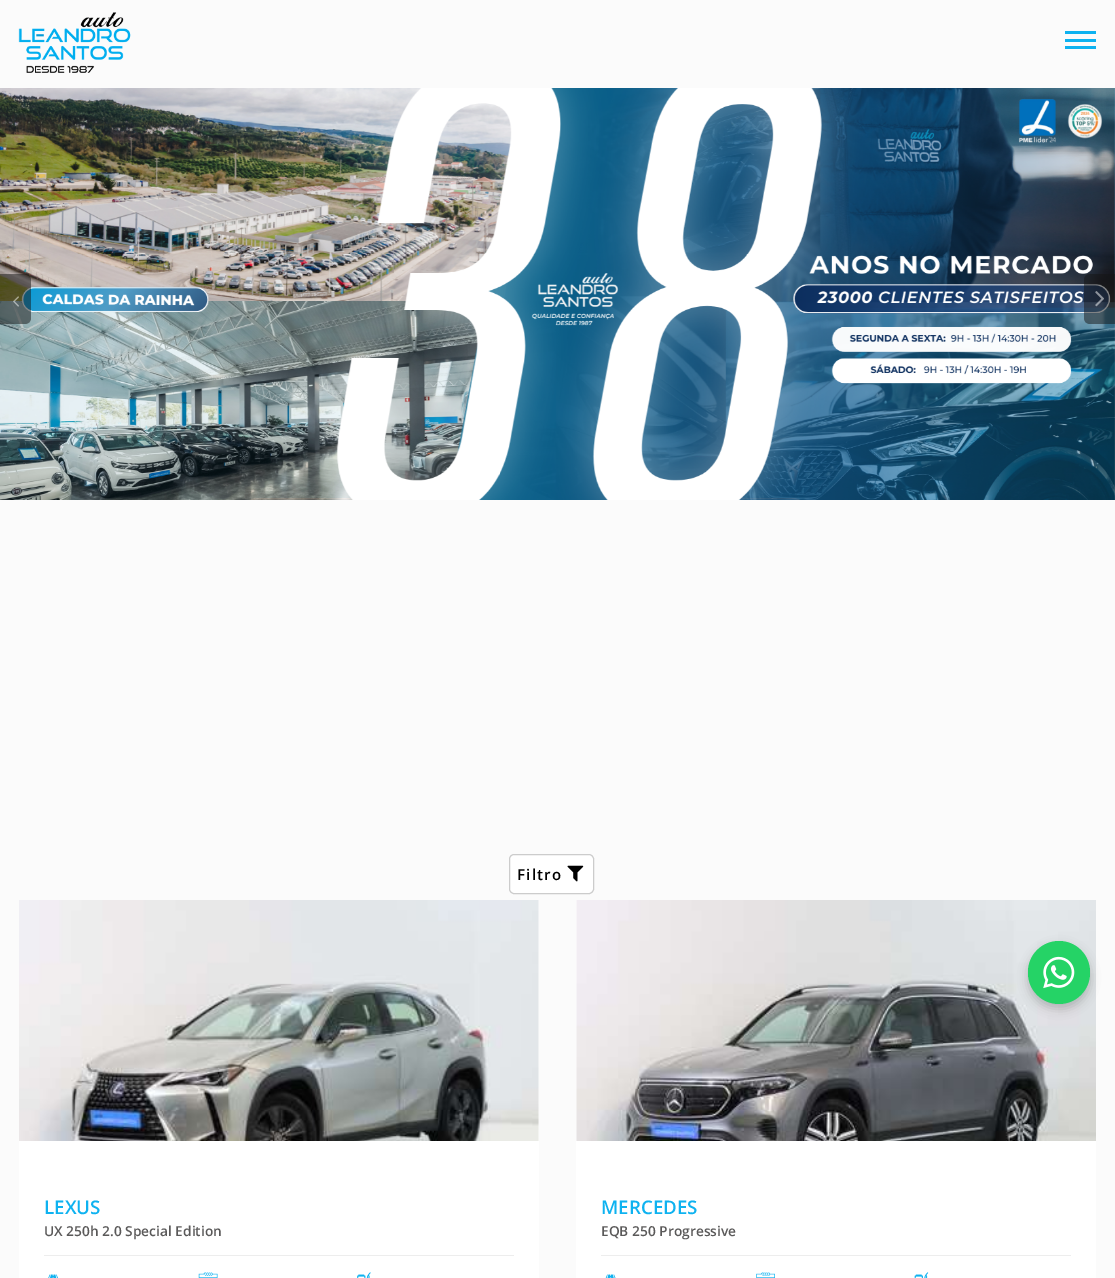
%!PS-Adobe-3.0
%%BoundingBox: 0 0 1115 1278
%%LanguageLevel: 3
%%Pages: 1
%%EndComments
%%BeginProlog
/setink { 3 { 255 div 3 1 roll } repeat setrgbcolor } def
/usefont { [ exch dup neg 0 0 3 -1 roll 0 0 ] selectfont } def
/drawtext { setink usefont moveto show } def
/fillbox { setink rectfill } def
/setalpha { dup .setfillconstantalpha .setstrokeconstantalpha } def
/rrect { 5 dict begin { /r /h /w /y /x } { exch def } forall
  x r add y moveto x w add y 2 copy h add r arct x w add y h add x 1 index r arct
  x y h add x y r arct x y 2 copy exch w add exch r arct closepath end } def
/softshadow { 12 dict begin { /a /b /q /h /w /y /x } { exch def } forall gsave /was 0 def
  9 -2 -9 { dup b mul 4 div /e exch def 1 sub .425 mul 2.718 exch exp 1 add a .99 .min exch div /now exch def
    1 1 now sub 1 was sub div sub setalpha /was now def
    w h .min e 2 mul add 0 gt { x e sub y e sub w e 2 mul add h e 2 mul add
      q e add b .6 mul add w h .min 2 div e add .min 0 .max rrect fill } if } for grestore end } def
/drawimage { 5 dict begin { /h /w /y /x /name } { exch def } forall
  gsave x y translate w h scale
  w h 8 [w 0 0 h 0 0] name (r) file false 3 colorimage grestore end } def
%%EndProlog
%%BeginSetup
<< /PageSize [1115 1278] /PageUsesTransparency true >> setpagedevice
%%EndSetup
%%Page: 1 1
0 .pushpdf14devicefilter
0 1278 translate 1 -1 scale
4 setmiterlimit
0 0 1115 1278 251 251 251 fillbox
gsave
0 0 moveto 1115 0 lineto 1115 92 lineto 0 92 lineto closepath 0 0 moveto 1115 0 lineto 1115 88 lineto 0 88 lineto closepath eoclip newpath
0 0 0 setink
0 1 1115 88 0 0.5 0.05 softshadow
grestore
(assets/img1.rgb) 18 12 113 61 drawimage
1065 31 31 3 14 178 240 fillbox
1065 39 31 3 14 178 240 fillbox
1065 46 31 3 14 178 240 fillbox
(assets/img2.rgb) 0 88 1115 412 drawimage
0.5 setalpha
21 21 21 setink
0 274 moveto 25 274 lineto 28.5 274 31 276.5 31 280 curveto 31 318 lineto 31 321.5 28.5 324 25 324 curveto 0 324 lineto closepath fill
1 setalpha
(assets/img3.rgb) 13 296 6 11 drawimage
0.5 setalpha
1090 274 moveto 1115 274 lineto 1115 324 lineto 1090 324 lineto 1086.5 324 1084 321.5 1084 318 curveto 1084 280 lineto 1084 276.5 1086.5 274 1090 274 curveto closepath fill
1 setalpha
(assets/img4.rgb) 1095 291 9 16 drawimage
255 255 255 setink
509.5 854.5 84 39 4.5 rrect gsave fill grestore
204 204 204 setink
stroke
/OpenSans-SemiBold 15 usefont
0 0 0 setink
517 880 moveto 1.25 0 (Filtro) ashow
(assets/img5.rgb) 567 865 17 17 drawimage
538 900 1 241 255 255 255 fillbox
(assets/img6.rgb) 19 900 520 241 drawimage
19 1141 520 137 255 255 255 fillbox
44 1255 470 1 237 237 237 fillbox
(LEXUS) 44 1214 /OpenSans-SemiBold 18.75 14 178 240 drawtext
(UX 250h 2.0 Special Edition) 44 1236 /OpenSans-SemiBold 13.75 90 89 89 drawtext
(assets/img7.rgb) 48 1274 10 4 drawimage
(assets/img8.rgb) 198 1272 20 6 drawimage
(assets/img9.rgb) 357 1272 14 6 drawimage
576 900 1 241 255 255 255 fillbox
(assets/img10.rgb) 576 900 520 241 drawimage
576 1141 520 137 255 255 255 fillbox
601 1255 470 1 237 237 237 fillbox
(MERCEDES) 601 1214 /OpenSans-SemiBold 18.75 14 178 240 drawtext
(EQB 250 Progressive) 601 1236 /OpenSans-SemiBold 13.75 90 89 89 drawtext
(assets/img11.rgb) 605 1274 11 4 drawimage
(assets/img12.rgb) 756 1272 19 6 drawimage
(assets/img13.rgb) 914 1272 15 6 drawimage
0 0 0 setink
1028 946 62 63 31 5 0.2 softshadow
37 211 102 setink
1028 941 62 63 31 rrect fill
(assets/img14.rgb) 1043 956 32 33 drawimage
.poppdf14devicefilter showpage
%%EOF
